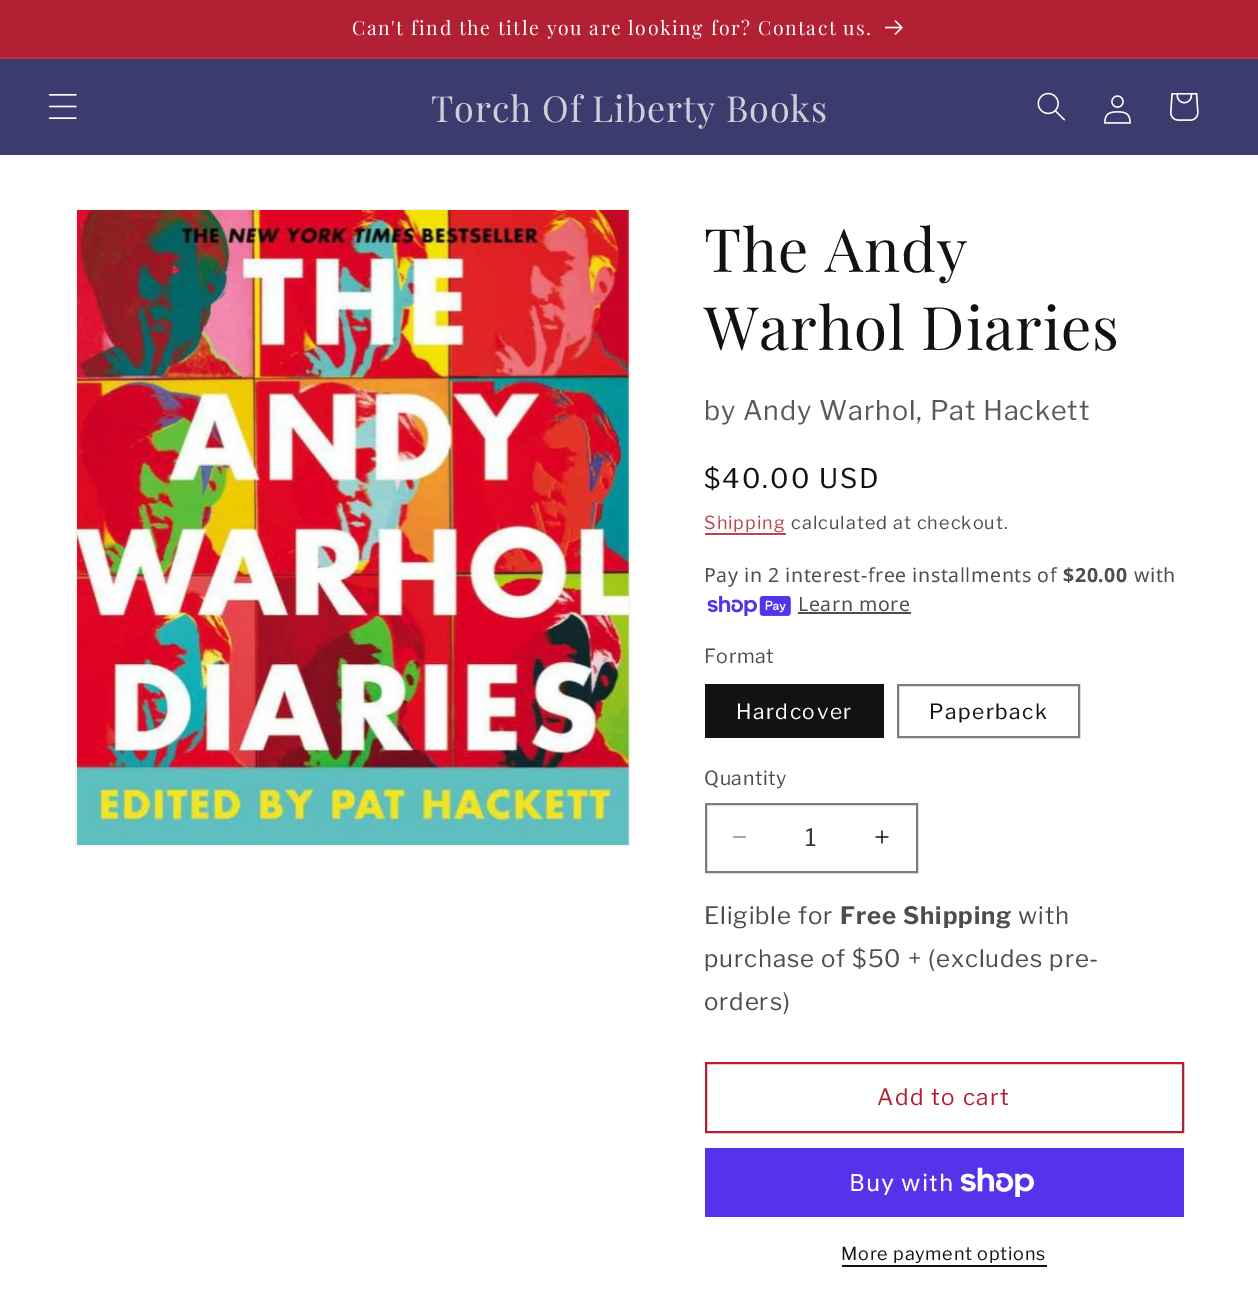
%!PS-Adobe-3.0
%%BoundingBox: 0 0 1258 1312
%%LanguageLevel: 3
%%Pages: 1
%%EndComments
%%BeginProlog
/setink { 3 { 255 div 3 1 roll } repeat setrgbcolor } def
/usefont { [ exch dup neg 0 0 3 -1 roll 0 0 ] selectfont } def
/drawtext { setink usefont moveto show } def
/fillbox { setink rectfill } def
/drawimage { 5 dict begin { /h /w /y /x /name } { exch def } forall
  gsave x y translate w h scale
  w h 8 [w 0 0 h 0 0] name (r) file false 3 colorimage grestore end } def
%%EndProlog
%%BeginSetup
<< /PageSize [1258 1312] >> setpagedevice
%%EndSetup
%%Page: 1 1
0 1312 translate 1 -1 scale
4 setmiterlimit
0 0 1258 1312 255 255 255 fillbox
0 0 1258 57 180 32 51 fillbox
0 57 1258 2 186 50 67 fillbox
/PlayfairDisplay-Regular 19.5 usefont
255 255 255 setink
352 35 moveto 1.5 0 (Can't find the title you are looking for? Contact us.) ashow
(assets/img1.rgb) 885 20 18 15 drawimage
0 59 1258 96 60 59 110 fillbox
(assets/img2.rgb) 48 94 29 25 drawimage
/PlayfairDisplay-Regular 36 usefont
206 206 219 setink
431 122 moveto 0.9 0 (Torch Of Liberty Books) ashow
(assets/img3.rgb) 1037 92 28 29 drawimage
(assets/img4.rgb) 1104 95 27 29 drawimage
(assets/img5.rgb) 1170 93 29 28 drawimage
243 243 243 setink
2 setlinewidth
76 210 553 635 rectstroke
(assets/img6.rgb) 77 210 552 635 drawimage
/PlayfairDisplay-Regular 60 usefont
18 18 18 setink
704 272 moveto 0.9 0 (The Andy) ashow
704 350 moveto 0.9 0 (Warhol Diaries) ashow
/LibreFranklin-Thin 27 usefont
89 89 89 setink
704 420 moveto 0.9 0 (by Andy Warhol, Pat Hackett) ashow
18 18 18 setink
704 488 moveto 2 0 ($40.00 USD) ashow
/LibreFranklin-Thin 18 usefont
191 65 82 setink
704 529 moveto 1.05 0 (Shipping) ashow
705 533 81 2 191 65 82 fillbox
77 77 77 setink
791 529 moveto 1.05 0 (calculated at checkout.) ashow
/NotoSans-Regular 19.5 usefont
704 582 moveto 0.6 0 (Pay in 2 interest-free installments of) ashow
/NotoSans-Bold 19.5 usefont
1063 582 moveto 0.6 0 ($20.00) ashow
/NotoSans-Regular 19.5 usefont
1134 582 moveto 0.6 0 (with) ashow
(assets/img7.rgb) 707 596 84 21 drawimage
798 611 moveto 0.6 0 (Learn more) ashow
798 612 113 2 77 77 77 fillbox
/LibreFranklin-Thin 19.5 usefont
704 663 moveto 0.6 0 (Format) ashow
705 684 179 54 18 18 18 fillbox
/LibreFranklin-Thin 21 usefont
255 255 255 setink
736 719 moveto 1.5 0 (Hardcover) ashow
125 125 125 setink
898 685 181 52 rectstroke
18 18 18 setink
929 719 moveto 1.5 0 (Paperback) ashow
/LibreFranklin-Thin 19.5 usefont
77 77 77 setink
704 785 moveto 0.6 0 (Quantity) ashow
(assets/img8.rgb) 732 836 15 2 drawimage
(assets/img9.rgb) 875 830 14 14 drawimage
125 125 125 setink
706 804 211 68 rectstroke
(1) 805 846 /LibreFranklin-Thin 24 54 54 54 drawtext
77 77 77 setink
704 924 moveto 0.9 0 (Eligible for) ashow
/LibreFranklin-Bold 24 usefont
840 924 moveto 0.9 0 (Free Shipping) ashow
/LibreFranklin-Thin 24 usefont
1018 924 moveto 0.9 0 (with) ashow
704 967 moveto 0.9 0 (purchase of $50 + \(excludes pre-) ashow
704 1010 moveto 0.9 0 (orders\)) ashow
180 32 51 setink
706 1063 477 69 rectstroke
/LibreFranklin-Thin 22.5 usefont
877 1105 moveto 1.5 0 (Add to cart) ashow
705 1148 479 69 84 51 235 fillbox
/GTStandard-Regular 24 usefont
255 255 255 setink
849 1191 moveto 0.9 0 (Buy with) ashow
(assets/img10.rgb) 960 1167 74 30 drawimage
/LibreFranklin-Thin 18 usefont
18 18 18 setink
841 1260 moveto 0.75 0 (More payment options) ashow
842 1265 205 2 18 18 18 fillbox
showpage
%%EOF
